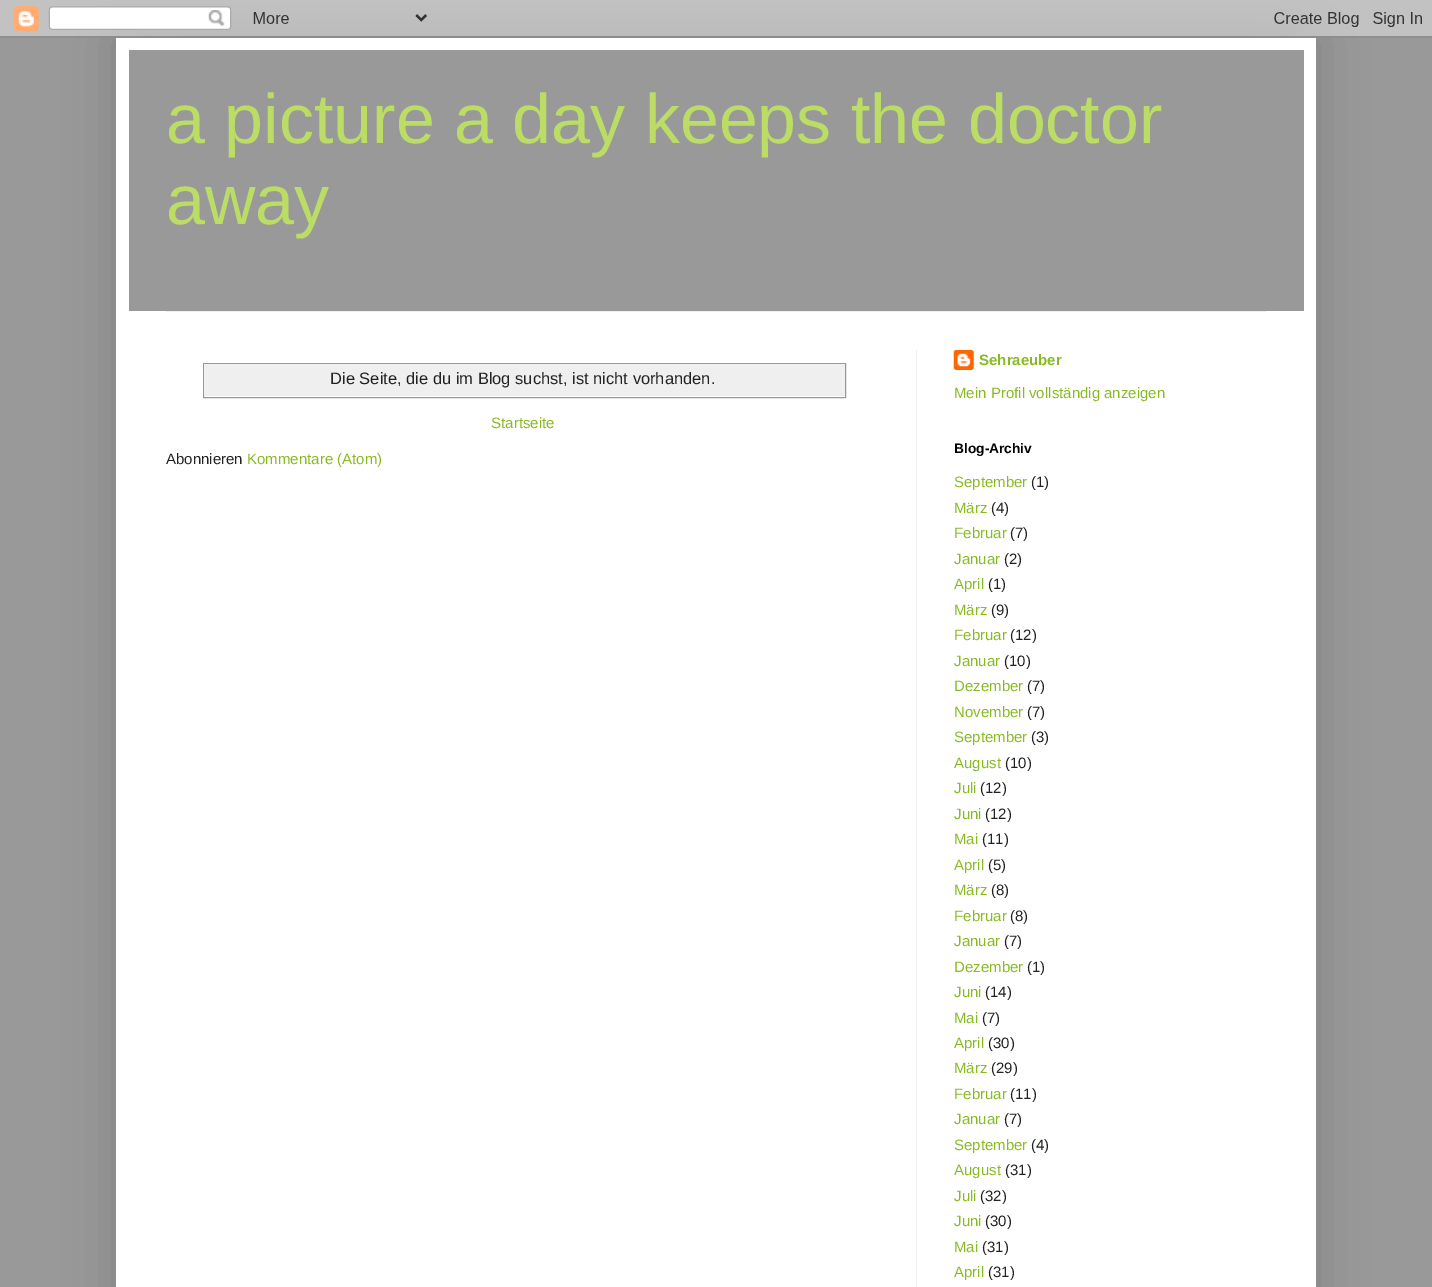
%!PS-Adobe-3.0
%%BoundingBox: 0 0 1432 1287
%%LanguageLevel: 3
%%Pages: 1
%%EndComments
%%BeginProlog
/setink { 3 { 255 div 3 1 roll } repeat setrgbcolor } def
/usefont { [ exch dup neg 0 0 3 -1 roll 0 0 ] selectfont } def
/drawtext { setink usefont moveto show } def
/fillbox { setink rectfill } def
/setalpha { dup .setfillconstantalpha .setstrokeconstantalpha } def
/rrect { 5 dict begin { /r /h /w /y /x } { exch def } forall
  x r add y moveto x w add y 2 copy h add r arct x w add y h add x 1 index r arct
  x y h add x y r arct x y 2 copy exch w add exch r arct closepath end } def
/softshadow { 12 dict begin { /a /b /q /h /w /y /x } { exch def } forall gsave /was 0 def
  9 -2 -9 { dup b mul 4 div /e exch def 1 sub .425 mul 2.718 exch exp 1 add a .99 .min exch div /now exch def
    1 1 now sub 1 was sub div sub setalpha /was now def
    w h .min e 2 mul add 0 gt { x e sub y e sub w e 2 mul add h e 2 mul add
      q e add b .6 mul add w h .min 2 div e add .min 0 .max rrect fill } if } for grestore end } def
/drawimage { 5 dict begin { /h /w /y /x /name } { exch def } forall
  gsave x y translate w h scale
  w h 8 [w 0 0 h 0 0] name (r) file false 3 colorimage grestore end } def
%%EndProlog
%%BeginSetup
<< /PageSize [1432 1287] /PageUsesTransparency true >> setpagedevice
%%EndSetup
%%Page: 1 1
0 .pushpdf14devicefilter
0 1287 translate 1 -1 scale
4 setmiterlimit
0 0 1432 1287 153 153 153 fillbox
0 0 0 setink
116 38 1200 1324 0 25 0.15 softshadow
(assets/img1.rgb) 0 0 1432 38 drawimage
116 38 1200 1249 255 255 255 fillbox
129 50 1175 261 153 153 153 fillbox
(a picture a day keeps the doctor) 166 143 /LiberationSans-Regular 70 187 221 102 drawtext
(away) 166 224 /LiberationSans-Regular 70 187 221 102 drawtext
166 311 1100 1 238 238 238 fillbox
916 350 1 937 238 238 238 fillbox
153 153 153 setink
203.5 363.5 642 34 rectstroke
204 364 641 32 239 239 239 fillbox
(Die Seite, die du im Blog suchst, ist nicht vorhanden.) 330 384 /LiberationSans-Regular 16.5 34 34 34 drawtext
(Startseite) 491 428 /LiberationSans-Regular 15 136 187 33 drawtext
(Abonnieren) 166 464 /LiberationSans-Regular 15 34 34 34 drawtext
(Kommentare \(Atom\)) 247 464 /LiberationSans-Regular 15 136 187 33 drawtext
(assets/img2.rgb) 953 350 21 20 drawimage
(Sehraeuber) 979 365 /LiberationSans-Bold 15 136 187 33 drawtext
(Mein Profil vollständig anzeigen) 954 398 /LiberationSans-Regular 15 136 187 33 drawtext
(Blog-Archiv) 954 453 /LiberationSans-Bold 13.75 0 0 0 drawtext
(September) 954 487 /LiberationSans-Regular 15 136 187 33 drawtext
(\(1\)) 1031 487 /LiberationSans-Regular 15 34 34 34 drawtext
(März) 954 513 /LiberationSans-Regular 15 136 187 33 drawtext
(\(4\)) 991 513 /LiberationSans-Regular 15 34 34 34 drawtext
(Februar) 954 538 /LiberationSans-Regular 15 136 187 33 drawtext
(\(7\)) 1010 538 /LiberationSans-Regular 15 34 34 34 drawtext
(Januar) 954 564 /LiberationSans-Regular 15 136 187 33 drawtext
(\(2\)) 1004 564 /LiberationSans-Regular 15 34 34 34 drawtext
(April) 954 589 /LiberationSans-Regular 15 136 187 33 drawtext
(\(1\)) 988 589 /LiberationSans-Regular 15 34 34 34 drawtext
(März) 954 615 /LiberationSans-Regular 15 136 187 33 drawtext
(\(9\)) 991 615 /LiberationSans-Regular 15 34 34 34 drawtext
(Februar) 954 640 /LiberationSans-Regular 15 136 187 33 drawtext
(\(12\)) 1010 640 /LiberationSans-Regular 15 34 34 34 drawtext
(Januar) 954 666 /LiberationSans-Regular 15 136 187 33 drawtext
(\(10\)) 1004 666 /LiberationSans-Regular 15 34 34 34 drawtext
(Dezember) 954 691 /LiberationSans-Regular 15 136 187 33 drawtext
(\(7\)) 1027 691 /LiberationSans-Regular 15 34 34 34 drawtext
(November) 954 717 /LiberationSans-Regular 15 136 187 33 drawtext
(\(7\)) 1027 717 /LiberationSans-Regular 15 34 34 34 drawtext
(September) 954 742 /LiberationSans-Regular 15 136 187 33 drawtext
(\(3\)) 1031 742 /LiberationSans-Regular 15 34 34 34 drawtext
(August) 954 768 /LiberationSans-Regular 15 136 187 33 drawtext
(\(10\)) 1005 768 /LiberationSans-Regular 15 34 34 34 drawtext
(Juli) 954 793 /LiberationSans-Regular 15 136 187 33 drawtext
(\(12\)) 980 793 /LiberationSans-Regular 15 34 34 34 drawtext
(Juni) 954 819 /LiberationSans-Regular 15 136 187 33 drawtext
(\(12\)) 985 819 /LiberationSans-Regular 15 34 34 34 drawtext
(Mai) 954 844 /LiberationSans-Regular 15 136 187 33 drawtext
(\(11\)) 982 844 /LiberationSans-Regular 15 34 34 34 drawtext
(April) 954 870 /LiberationSans-Regular 15 136 187 33 drawtext
(\(5\)) 988 870 /LiberationSans-Regular 15 34 34 34 drawtext
(März) 954 895 /LiberationSans-Regular 15 136 187 33 drawtext
(\(8\)) 991 895 /LiberationSans-Regular 15 34 34 34 drawtext
(Februar) 954 921 /LiberationSans-Regular 15 136 187 33 drawtext
(\(8\)) 1010 921 /LiberationSans-Regular 15 34 34 34 drawtext
(Januar) 954 946 /LiberationSans-Regular 15 136 187 33 drawtext
(\(7\)) 1004 946 /LiberationSans-Regular 15 34 34 34 drawtext
(Dezember) 954 972 /LiberationSans-Regular 15 136 187 33 drawtext
(\(1\)) 1027 972 /LiberationSans-Regular 15 34 34 34 drawtext
(Juni) 954 997 /LiberationSans-Regular 15 136 187 33 drawtext
(\(14\)) 985 997 /LiberationSans-Regular 15 34 34 34 drawtext
(Mai) 954 1023 /LiberationSans-Regular 15 136 187 33 drawtext
(\(7\)) 982 1023 /LiberationSans-Regular 15 34 34 34 drawtext
(April) 954 1048 /LiberationSans-Regular 15 136 187 33 drawtext
(\(30\)) 988 1048 /LiberationSans-Regular 15 34 34 34 drawtext
(März) 954 1073 /LiberationSans-Regular 15 136 187 33 drawtext
(\(29\)) 991 1073 /LiberationSans-Regular 15 34 34 34 drawtext
(Februar) 954 1099 /LiberationSans-Regular 15 136 187 33 drawtext
(\(11\)) 1010 1099 /LiberationSans-Regular 15 34 34 34 drawtext
(Januar) 954 1124 /LiberationSans-Regular 15 136 187 33 drawtext
(\(7\)) 1004 1124 /LiberationSans-Regular 15 34 34 34 drawtext
(September) 954 1150 /LiberationSans-Regular 15 136 187 33 drawtext
(\(4\)) 1031 1150 /LiberationSans-Regular 15 34 34 34 drawtext
(August) 954 1175 /LiberationSans-Regular 15 136 187 33 drawtext
(\(31\)) 1005 1175 /LiberationSans-Regular 15 34 34 34 drawtext
(Juli) 954 1201 /LiberationSans-Regular 15 136 187 33 drawtext
(\(32\)) 980 1201 /LiberationSans-Regular 15 34 34 34 drawtext
(Juni) 954 1226 /LiberationSans-Regular 15 136 187 33 drawtext
(\(30\)) 985 1226 /LiberationSans-Regular 15 34 34 34 drawtext
(Mai) 954 1252 /LiberationSans-Regular 15 136 187 33 drawtext
(\(31\)) 982 1252 /LiberationSans-Regular 15 34 34 34 drawtext
(April) 954 1277 /LiberationSans-Regular 15 136 187 33 drawtext
(\(31\)) 988 1277 /LiberationSans-Regular 15 34 34 34 drawtext
.poppdf14devicefilter showpage
%%EOF
